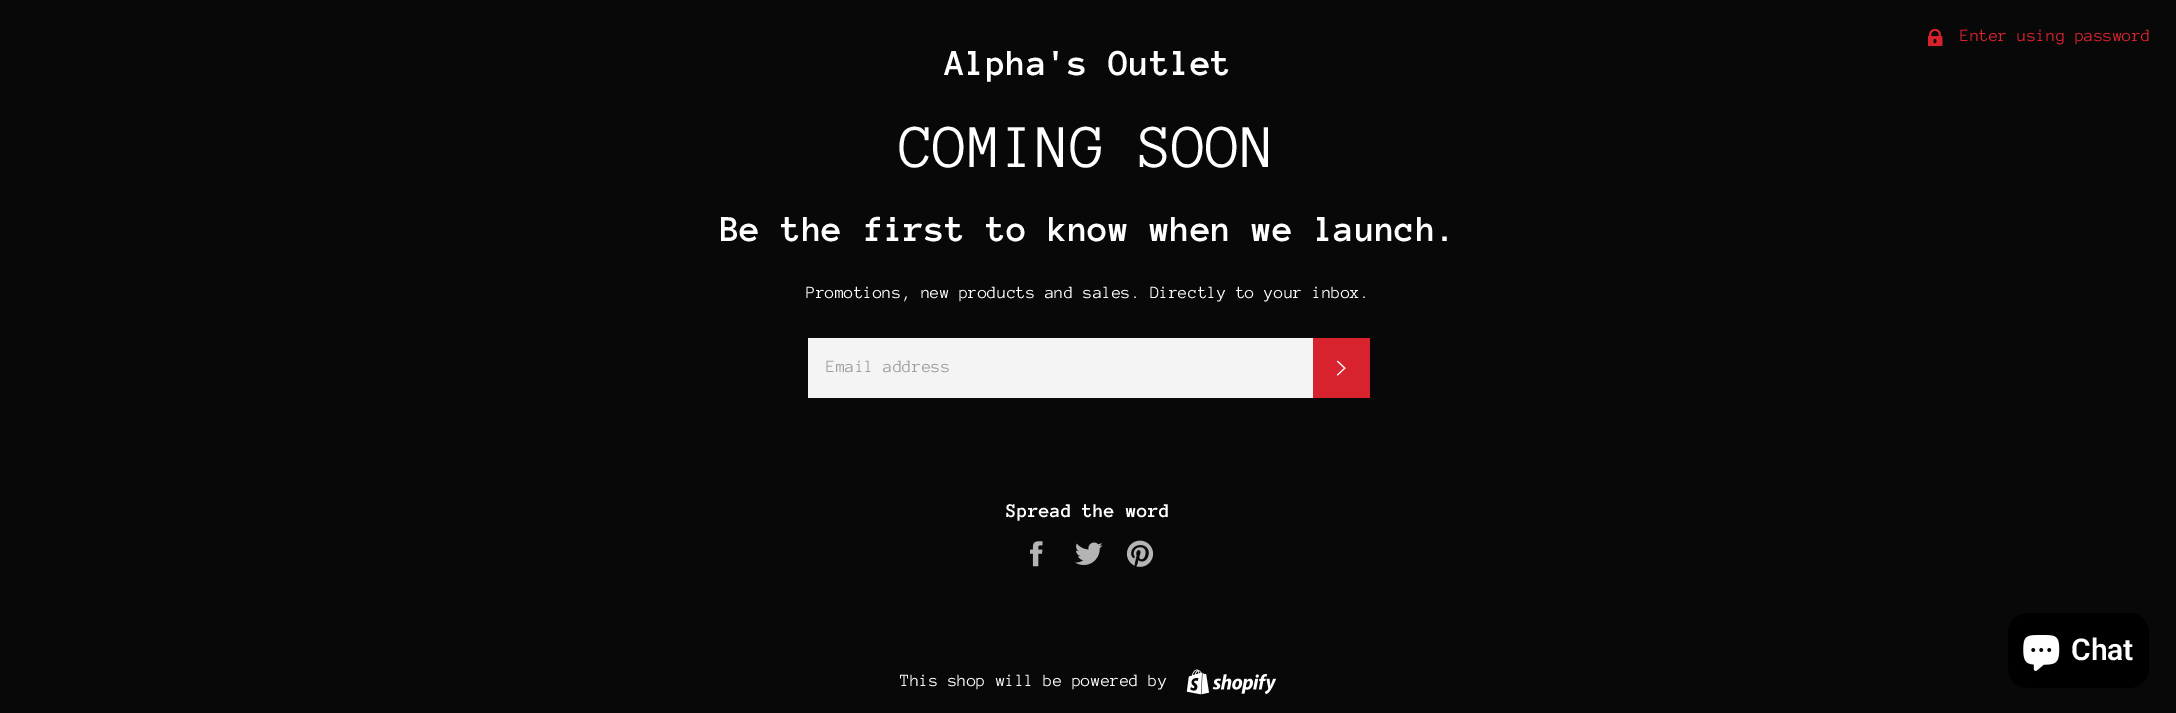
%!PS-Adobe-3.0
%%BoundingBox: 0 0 2176 713
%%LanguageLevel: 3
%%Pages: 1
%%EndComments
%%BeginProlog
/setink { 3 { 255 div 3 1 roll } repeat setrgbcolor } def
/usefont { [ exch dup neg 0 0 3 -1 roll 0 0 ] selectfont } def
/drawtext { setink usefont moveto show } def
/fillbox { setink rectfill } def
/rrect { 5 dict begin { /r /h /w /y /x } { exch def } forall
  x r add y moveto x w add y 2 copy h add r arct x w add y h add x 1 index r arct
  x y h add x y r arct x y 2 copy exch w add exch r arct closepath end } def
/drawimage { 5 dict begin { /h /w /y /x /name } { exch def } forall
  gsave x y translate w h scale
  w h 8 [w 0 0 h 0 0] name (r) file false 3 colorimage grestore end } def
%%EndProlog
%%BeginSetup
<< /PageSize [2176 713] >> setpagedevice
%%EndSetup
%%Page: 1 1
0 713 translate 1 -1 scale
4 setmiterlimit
0 0 2176 713 8 8 8 fillbox
(assets/img1.rgb) 1928 29 15 17 drawimage
(Enter using password) 1960 41 /AnonymousPro-Regular 17.5 216 35 47 drawtext
(Alpha's Outlet) 945 75 /AnonymousPro-Bold 37.5 255 255 255 drawtext
(COMING SOON) 900 167 /AnonymousPro-Regular 62.5 255 255 255 drawtext
(Be the first to know when we launch.) 720 241 /AnonymousPro-Bold 37.5 255 255 255 drawtext
(Promotions, new products and sales. Directly to your inbox.) 806 298 /AnonymousPro-Regular 17.5 255 255 255 drawtext
808 338 505 60 244 244 244 fillbox
(Email address) 826 372 /AnonymousPro-Regular 17.5 159 159 159 drawtext
1313 338 57 60 216 35 47 fillbox
(assets/img2.rgb) 1336 360 10 16 drawimage
(Spread the word) 1006 517 /AnonymousPro-Bold 20 255 255 255 drawtext
(assets/img3.rgb) 1030 541 13 26 drawimage
(assets/img4.rgb) 1075 542 28 23 drawimage
(assets/img5.rgb) 1126 540 28 27 drawimage
(This shop will be powered by) 900 686 /AnonymousPro-Regular 17.5 255 255 255 drawtext
(assets/img6.rgb) 1186 669 90 26 drawimage
0 0 0 setink
2008 613 141 75 20 rrect fill
(assets/img7.rgb) 2023 635 37 36 drawimage
(Chat) 2071 660 /Roboto-SemiBold 30 255 255 255 drawtext
showpage
%%EOF
